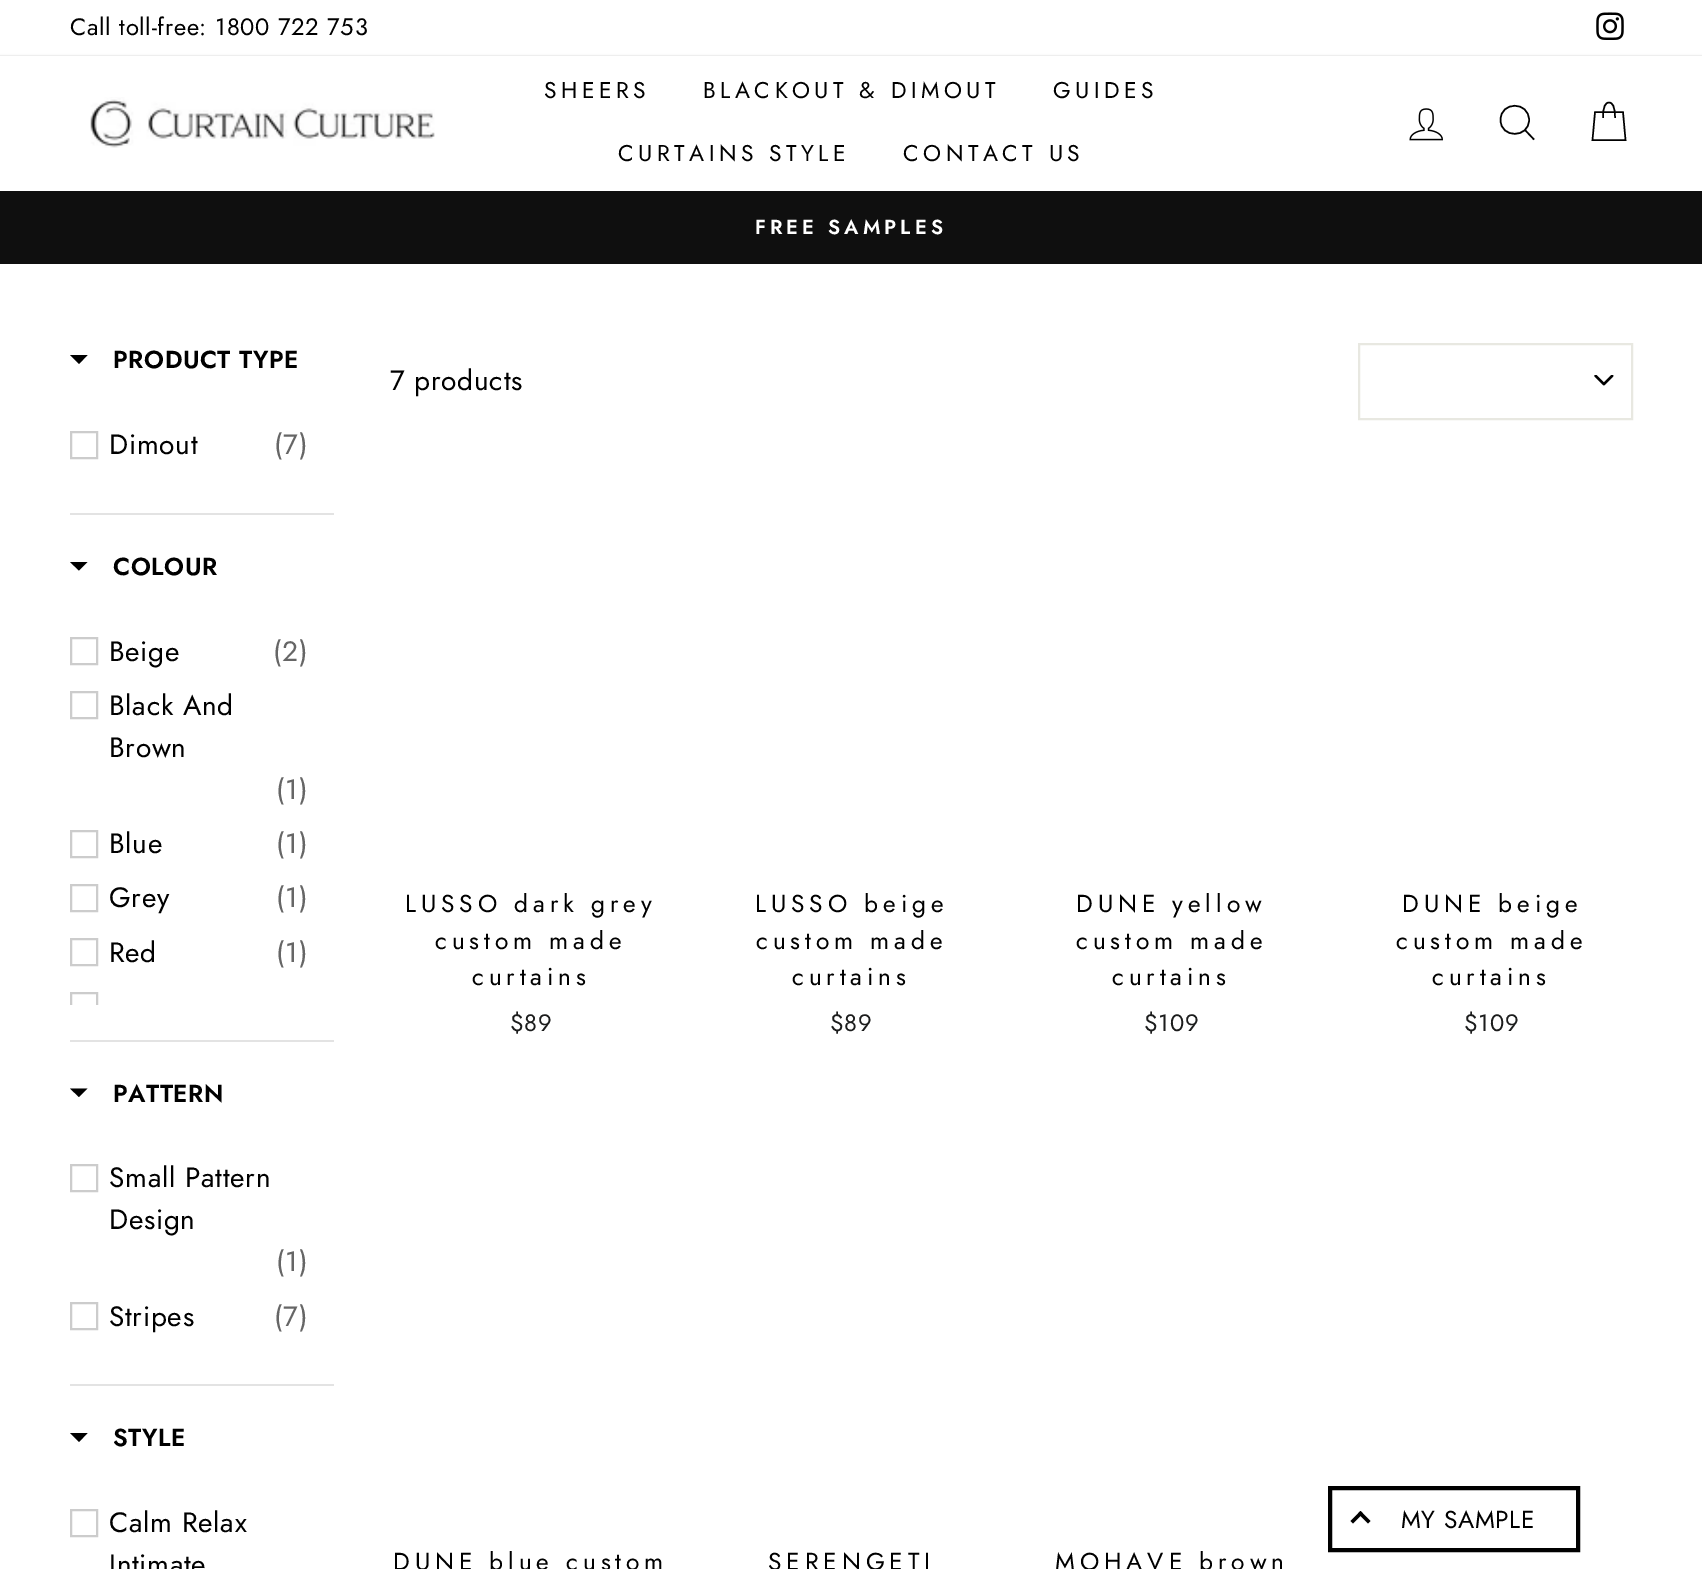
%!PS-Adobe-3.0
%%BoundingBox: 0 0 1702 1569
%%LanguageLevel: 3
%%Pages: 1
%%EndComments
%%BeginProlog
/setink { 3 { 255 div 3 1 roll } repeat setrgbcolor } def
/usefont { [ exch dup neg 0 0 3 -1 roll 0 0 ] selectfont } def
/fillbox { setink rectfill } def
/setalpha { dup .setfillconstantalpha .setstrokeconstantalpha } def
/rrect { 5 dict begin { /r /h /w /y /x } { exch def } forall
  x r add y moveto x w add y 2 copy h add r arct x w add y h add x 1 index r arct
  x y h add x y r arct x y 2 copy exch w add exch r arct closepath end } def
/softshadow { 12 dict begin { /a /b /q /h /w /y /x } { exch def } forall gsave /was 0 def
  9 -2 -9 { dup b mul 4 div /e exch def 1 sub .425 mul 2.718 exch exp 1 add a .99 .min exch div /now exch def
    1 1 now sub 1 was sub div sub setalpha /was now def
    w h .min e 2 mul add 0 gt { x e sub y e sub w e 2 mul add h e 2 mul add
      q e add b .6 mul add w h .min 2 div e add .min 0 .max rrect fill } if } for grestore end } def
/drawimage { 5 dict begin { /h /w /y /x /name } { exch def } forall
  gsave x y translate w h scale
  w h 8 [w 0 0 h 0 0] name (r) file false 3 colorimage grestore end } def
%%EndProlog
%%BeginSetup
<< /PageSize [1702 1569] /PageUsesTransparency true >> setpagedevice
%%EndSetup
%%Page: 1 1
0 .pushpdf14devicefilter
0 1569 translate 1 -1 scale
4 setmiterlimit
0 0 1702 1569 255 255 255 fillbox
/Jost-Regular 23.75 usefont
0 0 0 setink
70 35 moveto 0.7 0 (Call toll-free: 1800 722 753) ashow
(assets/img1.rgb) 1596 12 28 28 drawimage
0 56 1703 135 0 1 0.2 softshadow
0 56 1702 135 255 255 255 fillbox
(assets/img2.rgb) 90 97 345 51 drawimage
/Jost-Regular 22.75 usefont
0 0 0 setink
544 98 moveto 4.5 0 (SHEERS) ashow
703 98 moveto 4.5 0 (BLACKOUT & DIMOUT) ashow
1053 98 moveto 4.5 0 (GUIDES) ashow
618 161 moveto 4.5 0 (CURTAINS STYLE) ashow
903 161 moveto 4.5 0 (CONTACT US) ashow
(assets/img3.rgb) 1409 108 34 33 drawimage
1.5 setlinewidth
1529 120 moveto 1529 138.5 1500.5 138.5 1500.5 120 curveto 1500.5 101 1529 101 1529 120 curveto closepath 1534 139.5 moveto 1525 130 lineto stroke
1603 118 moveto 1603 106 1605.5 102.5 1609 102.5 curveto 1612.5 102.5 1615 106 1615 118 curveto 1595 112 moveto 1623 112 lineto 1625.5 140 lineto 1592.5 140 lineto closepath stroke
0 191 1702 73 15 15 15 fillbox
/Jost-SemiBold 20.25 usefont
255 255 255 setink
755 234 moveto 4 0 (FREE SAMPLES) ashow
0 0 0 setink
70 355 moveto 87.5 355 lineto 79 364 lineto closepath fill
/Jost-SemiBold 24.5 usefont
113 368 moveto 0.6 0 (PRODUCT TYPE) ashow
204 204 204 setink
2 setlinewidth
71 432 26 26 rectstroke
/Jost-Regular 28 usefont
0 0 0 setink
109 454 moveto 0.7 0 (Dimout) ashow
102 102 102 setink
274 454 moveto 0.7 0 (\(7\)) ashow
70 513 264 2 227 227 227 fillbox
0 0 0 setink
70 562 moveto 87.5 562 lineto 79 570.5 lineto closepath fill
/Jost-SemiBold 24.5 usefont
113 575 moveto 0.6 0 (COLOUR) ashow
204 204 204 setink
71 638 26 26 rectstroke
/Jost-Regular 28 usefont
0 0 0 setink
109 661 moveto 0.7 0 (Beige) ashow
102 102 102 setink
273 661 moveto 0.7 0 (\(2\)) ashow
204 204 204 setink
71 692 26 26 rectstroke
0 0 0 setink
109 715 moveto 0.7 0 (Black And) ashow
109 757 moveto 0.7 0 (Brown) ashow
102 102 102 setink
276 799 moveto 0.7 0 (\(1\)) ashow
204 204 204 setink
71 831 26 26 rectstroke
0 0 0 setink
109 853 moveto 0.7 0 (Blue) ashow
102 102 102 setink
276 853 moveto 0.7 0 (\(1\)) ashow
204 204 204 setink
71 885 26 26 rectstroke
0 0 0 setink
109 907 moveto 0.7 0 (Grey) ashow
102 102 102 setink
276 907 moveto 0.7 0 (\(1\)) ashow
204 204 204 setink
71 939 26 26 rectstroke
0 0 0 setink
109 962 moveto 0.7 0 (Red) ashow
102 102 102 setink
276 962 moveto 0.7 0 (\(1\)) ashow
gsave
70 620 264 385 rectclip
204 204 204 setink
71 993 26 26 rectstroke
grestore
70 1040 264 2 227 227 227 fillbox
0 0 0 setink
70 1088.5 moveto 87.5 1088.5 lineto 79 1097 lineto closepath fill
/Jost-SemiBold 24.5 usefont
113 1102 moveto 0.6 0 (PATTERN) ashow
204 204 204 setink
71 1165 26 26 rectstroke
/Jost-Regular 28 usefont
0 0 0 setink
109 1187 moveto 0.7 0 (Small Pattern) ashow
109 1229 moveto 0.7 0 (Design) ashow
102 102 102 setink
276 1271 moveto 0.7 0 (\(1\)) ashow
204 204 204 setink
71 1303 26 26 rectstroke
0 0 0 setink
109 1326 moveto 0.7 0 (Stripes) ashow
102 102 102 setink
274 1326 moveto 0.7 0 (\(7\)) ashow
70 1384 264 2 227 227 227 fillbox
0 0 0 setink
70 1433 moveto 87.5 1433 lineto 79 1442 lineto closepath fill
/Jost-SemiBold 24.5 usefont
113 1446 moveto 0.6 0 (STYLE) ashow
204 204 204 setink
71 1510 26 26 rectstroke
/Jost-Regular 28 usefont
0 0 0 setink
109 1532 moveto 0.7 0 (Calm Relax) ashow
109 1574 moveto 0.7 0 (Intimate) ashow
390 390 moveto 0.7 0 (7 products) ashow
(assets/img4.rgb) 1594 375 20 11 drawimage
232 232 225 setink
1359 344 273 75 rectstroke
/Jost-Regular 24.5 usefont
0 0 0 setink
405 912 moveto 4.9 0 (LUSSO dark grey) ashow
435 949 moveto 4.9 0 (custom made) ashow
472 985 moveto 4.9 0 (curtains) ashow
/Jost-Regular 23.75 usefont
28 29 29 setink
510 1031 moveto 0.7 0 ($89) ashow
/Jost-Regular 24.5 usefont
0 0 0 setink
755 912 moveto 4.9 0 (LUSSO beige) ashow
756 949 moveto 4.9 0 (custom made) ashow
792 985 moveto 4.9 0 (curtains) ashow
/Jost-Regular 23.75 usefont
28 29 29 setink
830 1031 moveto 0.7 0 ($89) ashow
/Jost-Regular 24.5 usefont
0 0 0 setink
1076 912 moveto 4.9 0 (DUNE yellow) ashow
1076 949 moveto 4.9 0 (custom made) ashow
1112 985 moveto 4.9 0 (curtains) ashow
/Jost-Regular 23.75 usefont
28 29 29 setink
1144 1031 moveto 0.7 0 ($109) ashow
/Jost-Regular 24.5 usefont
0 0 0 setink
1402 912 moveto 4.9 0 (DUNE beige) ashow
1396 949 moveto 4.9 0 (custom made) ashow
1432 985 moveto 4.9 0 (curtains) ashow
/Jost-Regular 23.75 usefont
28 29 29 setink
1464 1031 moveto 0.7 0 ($109) ashow
/Jost-Regular 24.5 usefont
0 0 0 setink
393 1570 moveto 4.9 0 (DUNE blue custom) ashow
768 1570 moveto 4.9 0 (SERENGETI) ashow
1055 1570 moveto 4.9 0 (MOHAVE brown) ashow
4 setlinewidth
1330 1488 248 62 rectstroke
1360.5 1511 moveto 1370.5 1521 lineto 1368 1523.5 lineto 1358 1513.5 lineto closepath fill
1360.5 1511 moveto 1363 1513.5 lineto 1353 1523.5 lineto 1350.5 1521 lineto closepath fill
1401 1528 moveto 0.6 0 (MY SAMPLE) ashow
.poppdf14devicefilter showpage
%%EOF
